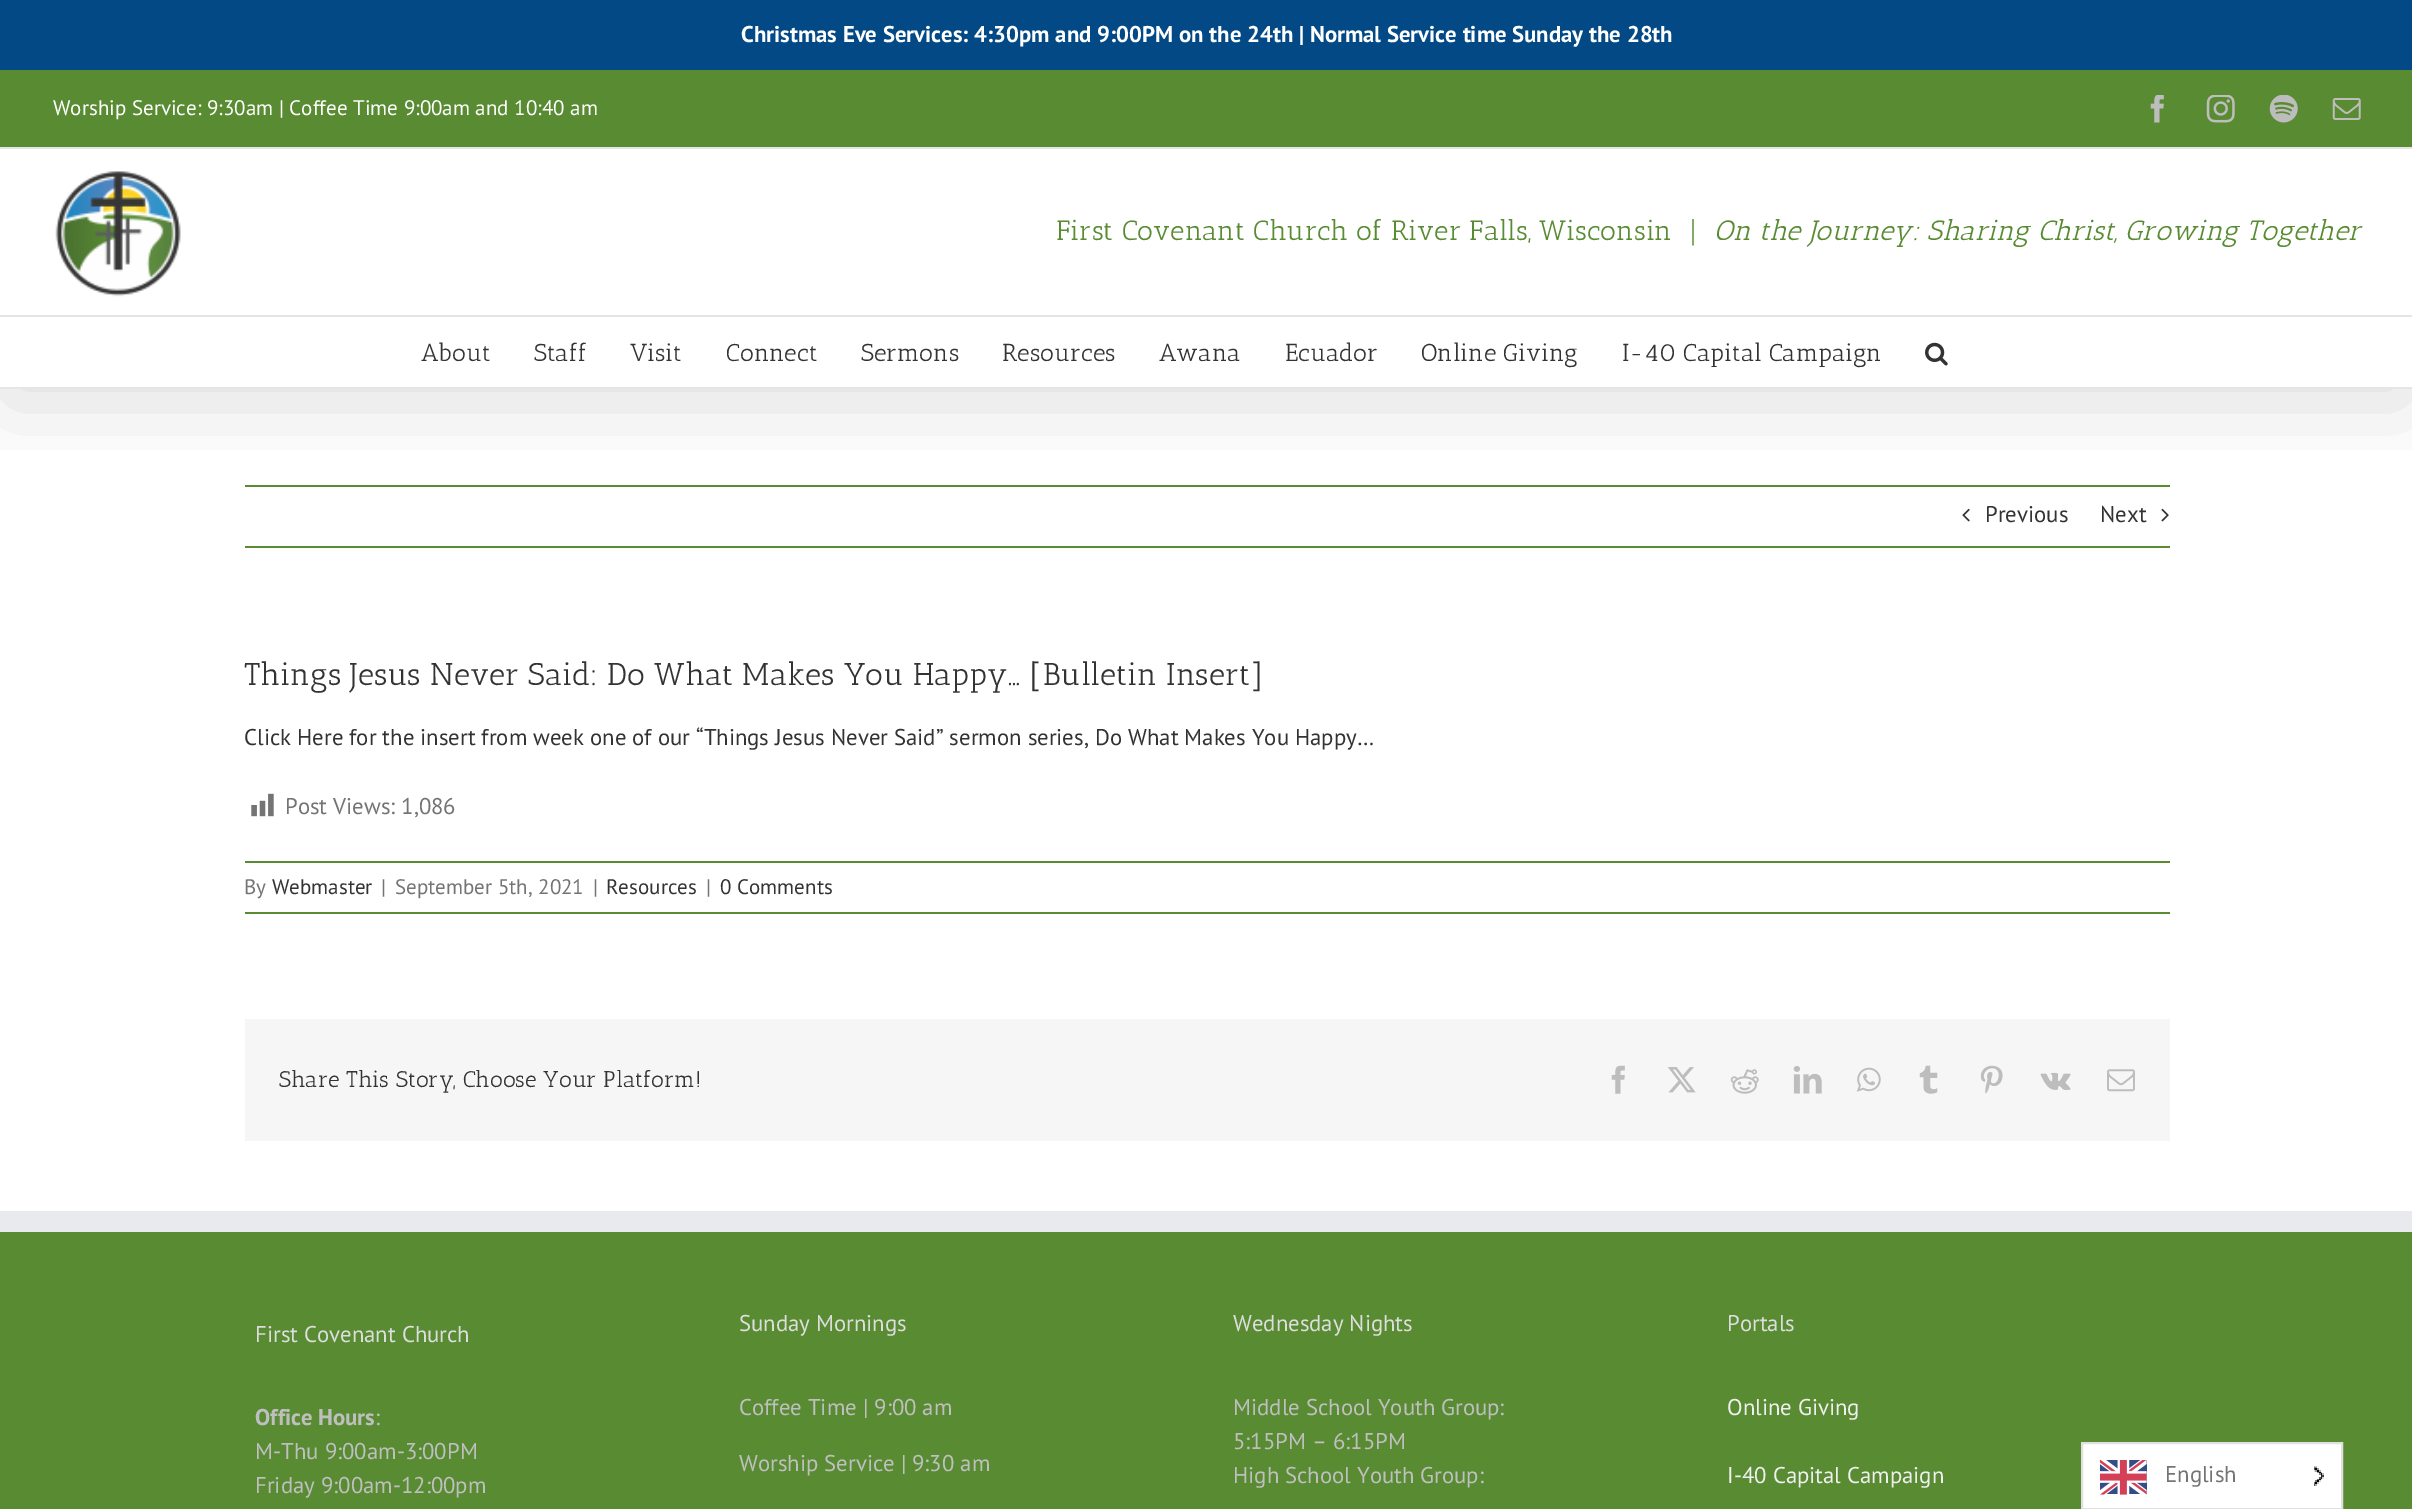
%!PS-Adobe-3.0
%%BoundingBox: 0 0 2412 1509
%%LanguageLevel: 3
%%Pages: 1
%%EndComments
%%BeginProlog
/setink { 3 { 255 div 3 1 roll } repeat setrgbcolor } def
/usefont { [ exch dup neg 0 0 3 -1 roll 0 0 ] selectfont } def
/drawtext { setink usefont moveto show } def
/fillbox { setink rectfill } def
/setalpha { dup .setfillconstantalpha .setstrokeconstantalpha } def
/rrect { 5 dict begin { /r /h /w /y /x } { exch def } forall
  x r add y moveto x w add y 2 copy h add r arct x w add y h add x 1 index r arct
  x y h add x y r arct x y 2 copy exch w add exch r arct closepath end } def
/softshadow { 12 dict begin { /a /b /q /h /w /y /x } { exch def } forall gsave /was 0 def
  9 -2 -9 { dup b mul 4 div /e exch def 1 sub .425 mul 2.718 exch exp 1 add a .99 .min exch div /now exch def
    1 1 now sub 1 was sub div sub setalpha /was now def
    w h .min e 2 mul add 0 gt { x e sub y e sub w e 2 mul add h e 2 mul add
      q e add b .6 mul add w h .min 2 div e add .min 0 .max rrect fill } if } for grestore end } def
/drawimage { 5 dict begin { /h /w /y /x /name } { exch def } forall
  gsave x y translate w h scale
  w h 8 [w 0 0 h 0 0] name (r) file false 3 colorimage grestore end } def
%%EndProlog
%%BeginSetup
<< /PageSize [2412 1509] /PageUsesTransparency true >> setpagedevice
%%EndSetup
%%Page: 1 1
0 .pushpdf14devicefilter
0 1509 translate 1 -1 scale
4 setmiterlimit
0 0 2412 1509 255 255 255 fillbox
245 485 1925 2 88 139 50 fillbox
(assets/img7.rgb) 1962 508 8 14 drawimage
(assets/img8.rgb) 2161 508 8 14 drawimage
gsave
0 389 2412 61 rectclip
0 0 0 setink
4 91 2406 312 0 44 0.14 softshadow
grestore
0 0 2412 70 2 73 133 fillbox
(Christmas Eve Services: 4:30pm and 9:00PM on the 24th | Normal Service time Sunday the 28th) 741 42 /PTSans-Bold 22.75 255 255 255 drawtext
0 70 2412 77 88 139 50 fillbox
0 147 2412 2 229 229 229 fillbox
(Worship Service: 9:30am | Coffee Time 9:00am and 10:40 am) 53 115 /PTSans-Regular 21 255 255 255 drawtext
(assets/img1.rgb) 2150 95 14 28 drawimage
(assets/img2.rgb) 2206 95 29 28 drawimage
(assets/img3.rgb) 2269 95 29 28 drawimage
(assets/img4.rgb) 2332 98 29 22 drawimage
0 315 2412 2 229 229 229 fillbox
(assets/img5.rgb) 55 171 126 126 drawimage
(First Covenant Church of River Falls, Wisconsin  |) 1056 240 /AnticSlab-Regular 28 88 139 50 drawtext
(On the Journey: Sharing Christ, Growing Together) 1714 240 /AnticSlab-Italic 28 88 139 50 drawtext
0 387 2412 2 229 229 229 fillbox
(About) 421 361 /AnticSlab-Regular 24.5 51 51 51 drawtext
(Staff) 534 361 /AnticSlab-Regular 24.5 51 51 51 drawtext
(Visit) 630 361 /AnticSlab-Regular 24.5 51 51 51 drawtext
(Connect) 726 361 /AnticSlab-Regular 24.5 51 51 51 drawtext
(Sermons) 861 361 /AnticSlab-Regular 24.5 51 51 51 drawtext
(Resources) 1002 361 /AnticSlab-Regular 24.5 51 51 51 drawtext
(Awana) 1159 361 /AnticSlab-Regular 24.5 51 51 51 drawtext
(Ecuador) 1285 361 /AnticSlab-Regular 24.5 51 51 51 drawtext
(Online Giving) 1421 361 /AnticSlab-Regular 24.5 51 51 51 drawtext
(I-40 Capital Campaign) 1622 361 /AnticSlab-Regular 24.5 51 51 51 drawtext
(assets/img6.rgb) 1925 342 23 24 drawimage
245 546 1925 2 88 139 50 fillbox
(Previous) 1985 522 /PTSans-Regular 22.75 51 51 51 drawtext
(Next) 2100 522 /PTSans-Regular 22.75 51 51 51 drawtext
(Things Jesus Never Said: Do What Makes You Happy… [Bulletin Insert]) 244 685 /AnticSlab-Regular 31.5 51 51 51 drawtext
(Click Here for the insert from week one of our “Things Jesus Never Said” sermon series, Do What Makes You Happy…) 244 745 /PTSans-Regular 22.75 51 51 51 drawtext
(assets/img9.rgb) 251 793 23 24 drawimage
(Post Views: 1,086) 285 814 /PTSans-Regular 22.75 116 116 116 drawtext
245 861 1925 2 88 139 50 fillbox
245 912 1925 2 88 139 50 fillbox
(By) 244 894 /PTSans-Regular 21 116 116 116 drawtext
(Webmaster) 272 894 /PTSans-Regular 21 51 51 51 drawtext
(|) 381 894 /PTSans-Regular 21 116 116 116 drawtext
(September 5th, 2021) 395 894 /PTSans-Regular 21 116 116 116 drawtext
(|) 593 894 /PTSans-Regular 21 116 116 116 drawtext
(Resources) 606 894 /PTSans-Regular 21 51 51 51 drawtext
(|) 706 894 /PTSans-Regular 21 116 116 116 drawtext
(0 Comments) 720 894 /PTSans-Regular 21 51 51 51 drawtext
245 1019 1925 122 246 246 246 fillbox
(Share This Story, Choose Your Platform!) 279 1087 /AnticSlab-Regular 22.75 51 51 51 drawtext
(assets/img10.rgb) 1611 1065 14 29 drawimage
(assets/img11.rgb) 1668 1067 28 26 drawimage
(assets/img12.rgb) 1730 1069 29 25 drawimage
(assets/img13.rgb) 1793 1066 29 28 drawimage
(assets/img14.rgb) 1856 1067 25 25 drawimage
(assets/img15.rgb) 1919 1065 19 29 drawimage
(assets/img16.rgb) 1980 1065 23 29 drawimage
(assets/img17.rgb) 2040 1072 31 18 drawimage
(assets/img18.rgb) 2107 1069 28 23 drawimage
0 1232 2412 277 88 139 50 fillbox
0 1211 2412 21 233 234 238 fillbox
(First Covenant Church) 255 1342 /PTSans-Regular 22.75 221 221 221 drawtext
(Office Hours) 255 1425 /PTSans-Bold 22.75 191 191 191 drawtext
(:) 375 1425 /PTSans-Regular 22.75 191 191 191 drawtext
(M-Thu 9:00am-3:00PM) 255 1459 /PTSans-Regular 22.75 191 191 191 drawtext
(Friday 9:00am-12:00pm) 255 1493 /PTSans-Regular 22.75 191 191 191 drawtext
(Sunday Mornings) 739 1331 /PTSans-Regular 22.75 221 221 221 drawtext
(Coffee Time | 9:00 am) 739 1415 /PTSans-Regular 22.75 191 191 191 drawtext
(Worship Service | 9:30 am) 739 1471 /PTSans-Regular 22.75 191 191 191 drawtext
(Wednesday Nights) 1233 1331 /PTSans-Regular 22.75 221 221 221 drawtext
(Middle School Youth Group:) 1233 1415 /PTSans-Regular 22.75 191 191 191 drawtext
(5:15PM – 6:15PM) 1233 1449 /PTSans-Regular 22.75 191 191 191 drawtext
(High School Youth Group:) 1233 1483 /PTSans-Regular 22.75 191 191 191 drawtext
(Portals) 1727 1331 /PTSans-Regular 22.75 221 221 221 drawtext
(Online Giving) 1727 1415 /PTSans-Regular 22.75 239 239 239 drawtext
(I-40 Capital Campaign) 1727 1483 /PTSans-Regular 22.75 239 239 239 drawtext
255 255 255 setink
2082 1443 moveto 2342 1443 lineto 2342 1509 lineto 2082 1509 lineto closepath gsave fill grestore
224 224 224 setink
2 setlinewidth
stroke
(assets/img19.rgb) 2100 1460 47 35 drawimage
(English) 2165 1482 /PTSans-Regular 22.75 116 116 116 drawtext
(assets/img20.rgb) 2314 1466 10 20 drawimage
.poppdf14devicefilter showpage
%%EOF
